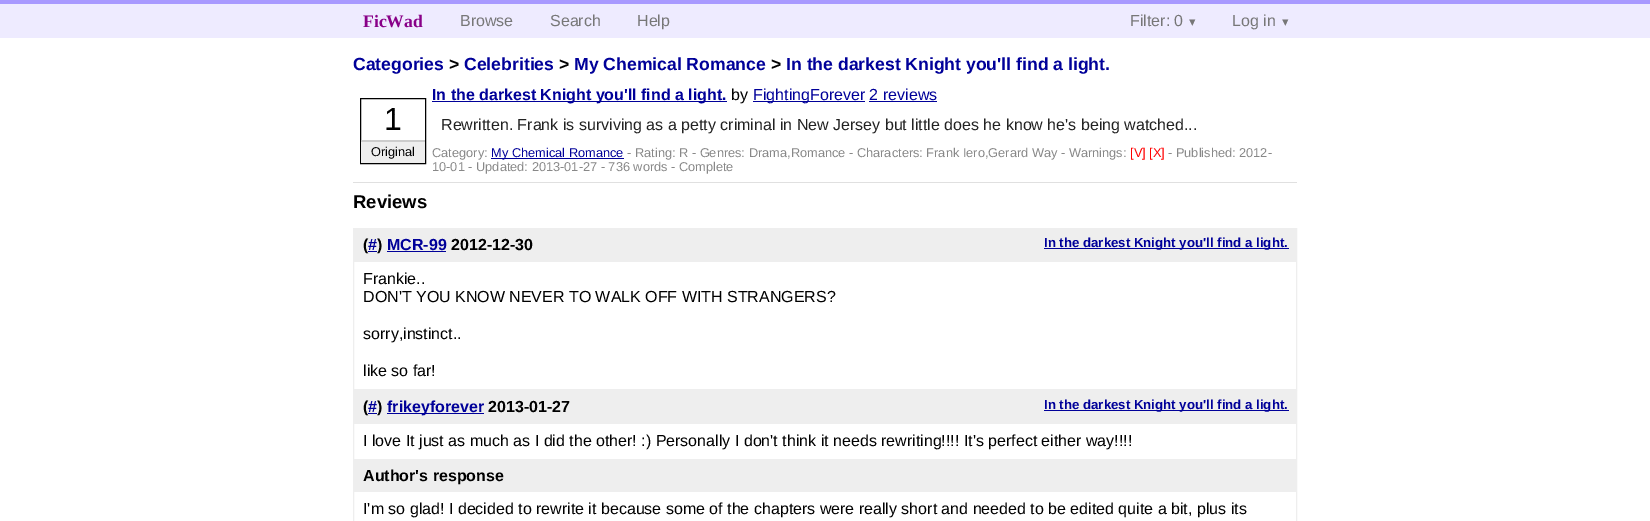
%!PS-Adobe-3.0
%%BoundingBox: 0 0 1650 521
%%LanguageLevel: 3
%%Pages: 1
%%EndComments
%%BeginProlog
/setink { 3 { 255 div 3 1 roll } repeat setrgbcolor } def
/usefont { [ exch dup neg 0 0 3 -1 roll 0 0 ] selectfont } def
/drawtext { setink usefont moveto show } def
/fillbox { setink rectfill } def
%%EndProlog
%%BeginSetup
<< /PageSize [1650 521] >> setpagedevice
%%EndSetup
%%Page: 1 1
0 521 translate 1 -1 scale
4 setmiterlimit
0 0 1650 521 255 255 255 fillbox
0 4 1650 34 238 235 255 fillbox
0 0 1650 4 168 153 255 fillbox
(FicWad) 363 27 /LiberationSerif-Bold 17.6 136 0 136 drawtext
(Browse) 460 26 /LiberationSans-Regular 16 119 119 119 drawtext
(Search) 550 26 /LiberationSans-Regular 16 119 119 119 drawtext
(Help) 637 26 /LiberationSans-Regular 16 119 119 119 drawtext
(Filter: 0) 1130 26 /LiberationSans-Regular 16 119 119 119 drawtext
(▾) 1189 26 /DejaVuSans-Regular 13 119 119 119 drawtext
(Log in) 1232 26 /LiberationSans-Regular 16 119 119 119 drawtext
(▾) 1282 26 /DejaVuSans-Regular 13 119 119 119 drawtext
(Categories) 353 70 /LiberationSans-Bold 17.6 0 0 153 drawtext
(>) 449 70 /LiberationSans-Bold 17.6 0 0 0 drawtext
(Celebrities) 464 70 /LiberationSans-Bold 17.6 0 0 153 drawtext
(>) 559 70 /LiberationSans-Bold 17.6 0 0 0 drawtext
(My Chemical Romance) 574 70 /LiberationSans-Bold 17.6 0 0 153 drawtext
(>) 771 70 /LiberationSans-Bold 17.6 0 0 0 drawtext
(In the darkest Knight you'll find a light.) 786 70 /LiberationSans-Bold 17.6 0 0 153 drawtext
353 182 944 1 224 224 224 fillbox
432 101 295 1 0 0 153 fillbox
(In the darkest Knight you'll find a light.) 432 100 /LiberationSans-Bold 16 0 0 153 drawtext
(by) 731 100 /LiberationSans-Regular 16 0 0 0 drawtext
753 101 112 1 0 0 153 fillbox
(FightingForever 2 reviews) 753 100 /LiberationSans-Regular 16 0 0 153 drawtext
869 101 68 1 0 0 153 fillbox
0 0 0 setink
360.5 98.5 65 65 rectstroke
(1) 384 130 /LiberationSans-Regular 32 0 0 0 drawtext
361 142 64 21 238 238 238 fillbox
361 140 64 2 204 204 204 fillbox
(Original) 371 156 /LiberationSans-Regular 12.8 0 0 0 drawtext
(Rewritten. Frank is surviving as a petty criminal in New Jersey but little does he know he's being watched...) 441 130 /LiberationSans-Regular 16 34 34 34 drawtext
(Category:) 432 157 /LiberationSans-Regular 12.8 136 136 136 drawtext
491 158 133 1 0 0 153 fillbox
(My Chemical Romance) 491 157 /LiberationSans-Regular 12.8 0 0 153 drawtext
(- Rating: R - Genres: Drama,Romance - Characters: Frank Iero,Gerard Way - Warnings:) 627 157 /LiberationSans-Regular 12.8 136 136 136 drawtext
([V] [X]) 1130 157 /LiberationSans-Regular 12.8 255 0 0 drawtext
(- Published: 2012-) 1168 157 /LiberationSans-Regular 12.8 136 136 136 drawtext
(10-01 - Updated: 2013-01-27 - 736 words - Complete) 432 171 /LiberationSans-Regular 12.8 136 136 136 drawtext
(Reviews) 353 208 /LiberationSans-Bold 18.5 0 0 0 drawtext
238 238 238 setink
353.5 228.5 943 161 rectstroke
354 229 942 33 238 238 238 fillbox
(\() 363 250 /LiberationSans-Bold 16 0 0 0 drawtext
(#) 368 250 /LiberationSans-Bold 16 0 0 153 drawtext
368 251 9 1 0 0 153 fillbox
(\)) 377 250 /LiberationSans-Bold 16 0 0 0 drawtext
(MCR-99) 387 250 /LiberationSans-Bold 16 0 0 153 drawtext
387 251 59 1 0 0 153 fillbox
(2012-12-30) 451 250 /LiberationSans-Bold 16 0 0 0 drawtext
1044 248 245 1 0 0 153 fillbox
(In the darkest Knight you'll find a light.) 1044 247 /LiberationSans-Bold 13.25 0 0 153 drawtext
(Frankie..) 363 284 /LiberationSans-Regular 16 0 0 0 drawtext
(DON'T YOU KNOW NEVER TO WALK OFF WITH STRANGERS?) 363 302 /LiberationSans-Regular 16 0 0 0 drawtext
(sorry,instinct..) 363 339 /LiberationSans-Regular 16 0 0 0 drawtext
(like so far!) 363 376 /LiberationSans-Regular 16 0 0 0 drawtext
238 238 238 setink
353.5 390.5 943 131 rectstroke
354 391 942 33 238 238 238 fillbox
(\() 363 412 /LiberationSans-Bold 16 0 0 0 drawtext
(#) 368 412 /LiberationSans-Bold 16 0 0 153 drawtext
368 413 9 1 0 0 153 fillbox
(\)) 377 412 /LiberationSans-Bold 16 0 0 0 drawtext
387 413 97 1 0 0 153 fillbox
(frikeyforever) 387 412 /LiberationSans-Bold 16 0 0 153 drawtext
(2013-01-27) 488 412 /LiberationSans-Bold 16 0 0 0 drawtext
1044 410 245 1 0 0 153 fillbox
(In the darkest Knight you'll find a light.) 1044 409 /LiberationSans-Bold 13.25 0 0 153 drawtext
(I love It just as much as I did the other! :\) Personally I don't think it needs rewriting!!!! It's perfect either way!!!!) 363 446 /LiberationSans-Regular 16 0 0 0 drawtext
354 459 942 33 238 238 238 fillbox
(Author's response) 363 481 /LiberationSans-Bold 16 0 0 0 drawtext
(I'm so glad! I decided to rewrite it because some of the chapters were really short and needed to be edited quite a bit, plus its) 363 514 /LiberationSans-Regular 16 0 0 0 drawtext
showpage
%%EOF
